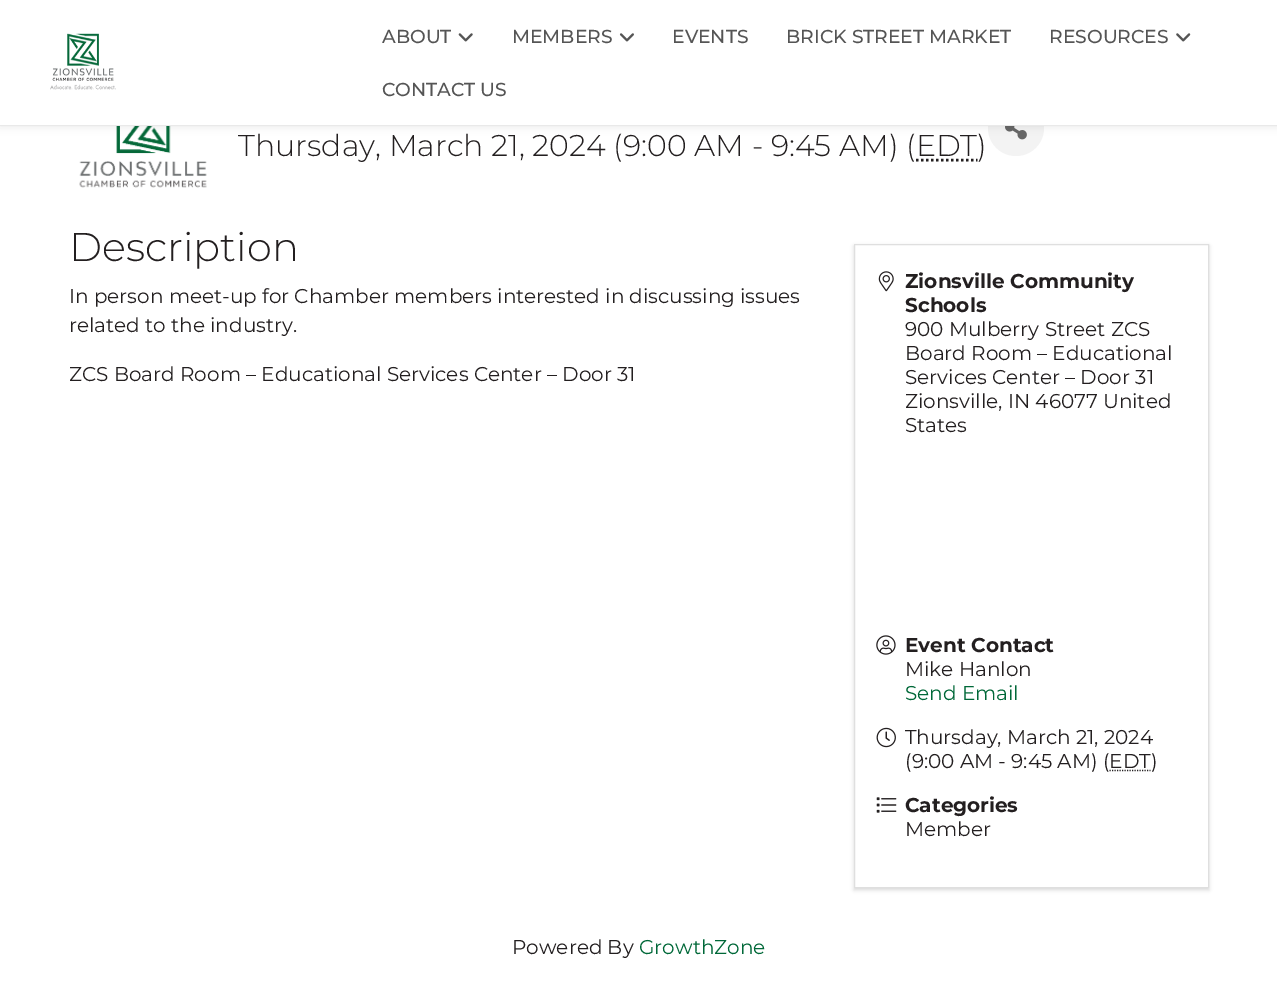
%!PS-Adobe-3.0
%%BoundingBox: 0 0 1277 990
%%LanguageLevel: 3
%%Pages: 1
%%EndComments
%%BeginProlog
/setink { 3 { 255 div 3 1 roll } repeat setrgbcolor } def
/usefont { [ exch dup neg 0 0 3 -1 roll 0 0 ] selectfont } def
/drawtext { setink usefont moveto show } def
/fillbox { setink rectfill } def
/setalpha { dup .setfillconstantalpha .setstrokeconstantalpha } def
/disc { newpath 0 360 arc closepath } def
/rrect { 5 dict begin { /r /h /w /y /x } { exch def } forall
  x r add y moveto x w add y 2 copy h add r arct x w add y h add x 1 index r arct
  x y h add x y r arct x y 2 copy exch w add exch r arct closepath end } def
/softshadow { 12 dict begin { /a /b /q /h /w /y /x } { exch def } forall gsave /was 0 def
  9 -2 -9 { dup b mul 4 div /e exch def 1 sub .425 mul 2.718 exch exp 1 add a .99 .min exch div /now exch def
    1 1 now sub 1 was sub div sub setalpha /was now def
    w h .min e 2 mul add 0 gt { x e sub y e sub w e 2 mul add h e 2 mul add
      q e add b .6 mul add w h .min 2 div e add .min 0 .max rrect fill } if } for grestore end } def
/drawimage { 5 dict begin { /h /w /y /x /name } { exch def } forall
  gsave x y translate w h scale
  w h 8 [w 0 0 h 0 0] name (r) file false 3 colorimage grestore end } def
%%EndProlog
%%BeginSetup
<< /PageSize [1277 990] /PageUsesTransparency true >> setpagedevice
%%EndSetup
%%Page: 1 1
0 .pushpdf14devicefilter
0 990 translate 1 -1 scale
4 setmiterlimit
0 0 1277 990 255 255 255 fillbox
(assets/img5.rgb) 79 126 128 62 drawimage
243 243 243 setink
1016 128 28 disc fill
(assets/img6.rgb) 1005 126 22 14 drawimage
0 0 0 setink
0 0 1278 126 0 4.5 0.1 softshadow
0 0 1277 125 255 255 255 fillbox
0 125 1277 1 233 233 233 fillbox
(assets/img1.rgb) 50 33 66 57 drawimage
(ABOUT) 382 43 /Montserrat-Medium 18.75 85 85 85 drawtext
(assets/img2.rgb) 458 33 15 9 drawimage
(MEMBERS) 512 43 /Montserrat-Medium 18.75 85 85 85 drawtext
(assets/img3.rgb) 619 33 15 9 drawimage
(EVENTS) 672 43 /Montserrat-Medium 18.75 85 85 85 drawtext
(BRICK STREET MARKET) 786 43 /Montserrat-Medium 18.75 85 85 85 drawtext
(RESOURCES) 1049 43 /Montserrat-Medium 18.75 85 85 85 drawtext
(assets/img4.rgb) 1176 33 15 9 drawimage
(CONTACT US) 382 96 /Montserrat-Medium 18.75 85 85 85 drawtext
(Thursday, March 21, 2024 \(9:00 AM - 9:45 AM\) \(EDT\)) 238 156 /Montserrat-Light 30 35 31 32 drawtext
2.5 setlinewidth
[2.5 2.5] 0 setdash
916 160 moveto 977.5 160 lineto stroke
(Description) 69 261 /Montserrat-Light 40 35 31 32 drawtext
(In person meet-up for Chamber members interested in discussing issues) 69 303 /Montserrat-Regular 20 35 31 32 drawtext
(related to the industry.) 69 332 /Montserrat-Regular 20 35 31 32 drawtext
(ZCS Board Room – Educational Services Center – Door 31) 69 381 /Montserrat-Regular 20 35 31 32 drawtext
0 0 0 setink
854 246 355 644 0 2 0.15 softshadow
255 255 255 setink
854.5 244.5 moveto 1208.5 244.5 lineto 1208.5 887.5 lineto 854.5 887.5 lineto closepath gsave fill grestore
223 223 223 setink
1 setlinewidth
[] 0 setdash
stroke
(assets/img7.rgb) 878 271 16 21 drawimage
(Zionsville Community) 905 288 /Montserrat-Bold 20 35 31 32 drawtext
(Schools) 905 312 /Montserrat-Bold 20 35 31 32 drawtext
(900 Mulberry Street ZCS) 905 336 /Montserrat-Regular 20 35 31 32 drawtext
(Board Room – Educational) 905 360 /Montserrat-Regular 20 35 31 32 drawtext
(Services Center – Door 31) 905 384 /Montserrat-Regular 20 35 31 32 drawtext
(Zionsville, IN 46077 United) 905 408 /Montserrat-Regular 20 35 31 32 drawtext
(States) 905 432 /Montserrat-Regular 20 35 31 32 drawtext
(assets/img8.rgb) 876 635 20 20 drawimage
(Event Contact) 905 652 /Montserrat-Bold 20 35 31 32 drawtext
(Mike Hanlon) 905 676 /Montserrat-Regular 20 35 31 32 drawtext
(Send Email) 905 700 /Montserrat-Regular 20 0 104 56 drawtext
(assets/img9.rgb) 876 727 20 21 drawimage
(Thursday, March 21, 2024) 905 744 /Montserrat-Regular 20 35 31 32 drawtext
(\(9:00 AM - 9:45 AM\) \(EDT\)) 905 768 /Montserrat-Regular 20 35 31 32 drawtext
1.2 setlinewidth
[1.25 1.25] 0 setdash
1109.5 770.5 moveto 1150.5 770.5 lineto stroke
(assets/img10.rgb) 876 797 21 16 drawimage
(Categories) 905 812 /Montserrat-Bold 20 35 31 32 drawtext
(Member) 905 836 /Montserrat-Regular 20 35 31 32 drawtext
(Powered By) 512 954 /Montserrat-Regular 20 35 31 32 drawtext
(GrowthZone) 639 954 /Montserrat-Regular 20 0 104 56 drawtext
.poppdf14devicefilter showpage
%%EOF
